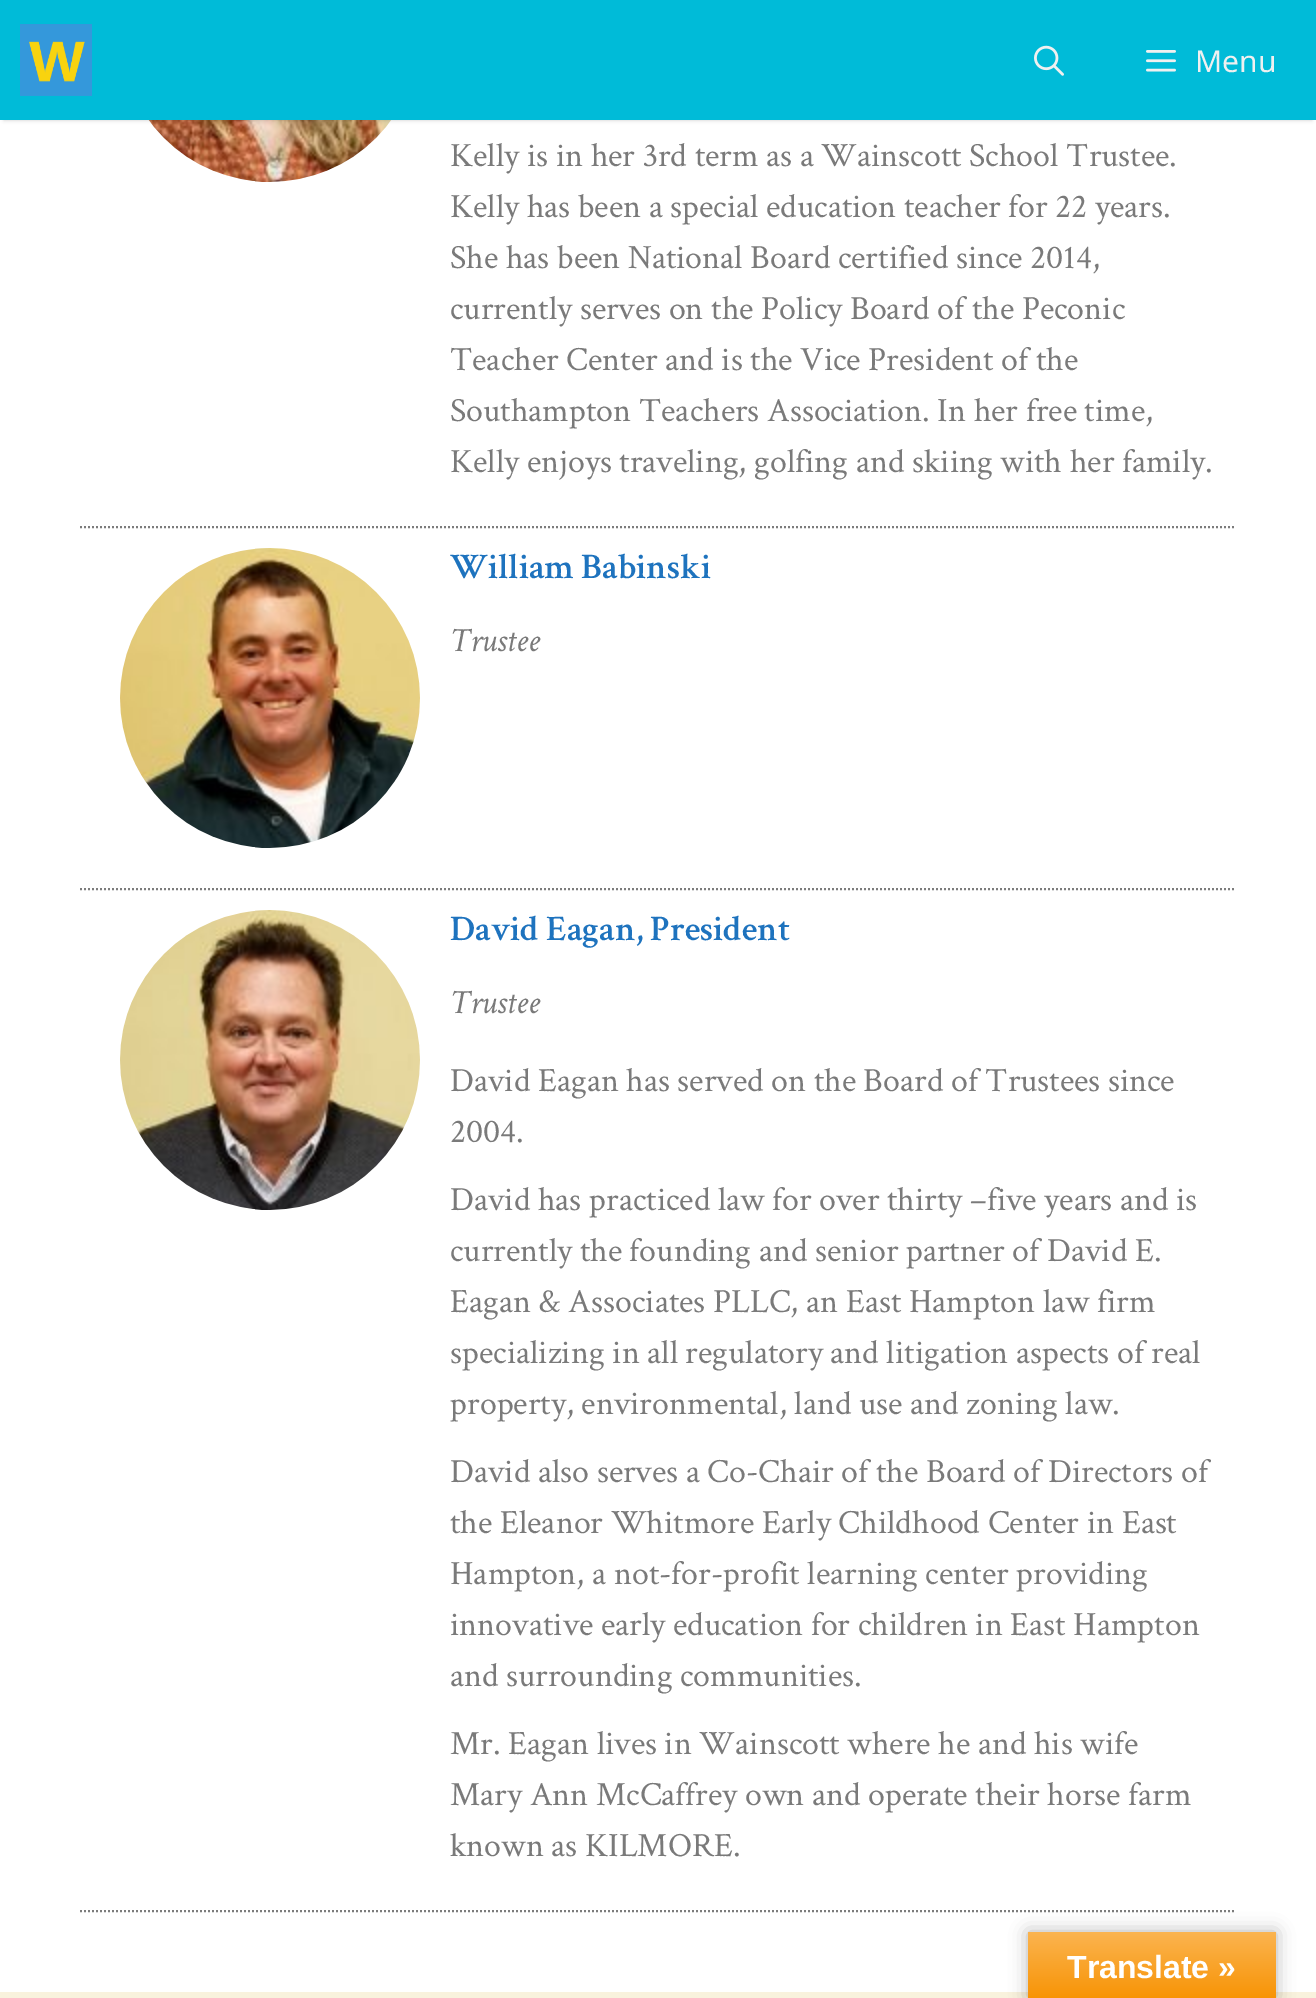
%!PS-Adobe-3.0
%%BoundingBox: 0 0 1316 1998
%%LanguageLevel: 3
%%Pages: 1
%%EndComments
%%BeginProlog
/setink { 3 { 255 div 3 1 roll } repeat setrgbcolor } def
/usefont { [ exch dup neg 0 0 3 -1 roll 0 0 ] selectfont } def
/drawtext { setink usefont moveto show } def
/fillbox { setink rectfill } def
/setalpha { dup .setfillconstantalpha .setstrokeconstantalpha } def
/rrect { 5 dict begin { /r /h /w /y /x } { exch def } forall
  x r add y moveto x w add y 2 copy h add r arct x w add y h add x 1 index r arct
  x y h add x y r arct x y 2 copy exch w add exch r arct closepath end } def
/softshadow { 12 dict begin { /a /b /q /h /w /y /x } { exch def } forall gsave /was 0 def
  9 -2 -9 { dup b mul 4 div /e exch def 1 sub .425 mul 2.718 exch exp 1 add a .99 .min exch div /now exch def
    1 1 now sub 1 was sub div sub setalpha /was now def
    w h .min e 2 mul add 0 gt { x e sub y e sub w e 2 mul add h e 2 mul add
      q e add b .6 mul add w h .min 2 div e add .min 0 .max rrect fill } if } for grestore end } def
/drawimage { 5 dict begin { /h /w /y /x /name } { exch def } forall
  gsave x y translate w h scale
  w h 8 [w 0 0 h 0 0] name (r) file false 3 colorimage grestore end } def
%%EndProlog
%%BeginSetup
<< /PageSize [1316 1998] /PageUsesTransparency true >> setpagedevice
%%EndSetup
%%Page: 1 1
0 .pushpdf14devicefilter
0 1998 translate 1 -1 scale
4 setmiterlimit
0 0 1316 1998 249 242 221 fillbox
0 120 1316 1872 255 255 255 fillbox
(assets/img4.rgb) 148 120 243 62 drawimage
0 0 0 setink
4 8 1308 112 0 2 0.2 softshadow
0 0 1316 120 0 187 216 fillbox
(assets/img1.rgb) 20 24 72 72 drawimage
(assets/img2.rgb) 1034 45 30 31 drawimage
(assets/img3.rgb) 1146 50 30 22 drawimage
(Menu) 1195 72 /NotoSans-Regular 30 240 240 240 drawtext
124 124 124 setink
2 setlinewidth
[2 2] 0 setdash
80 1911 moveto 1236 1911 lineto stroke
(Kelly is in her 3rd term as a Wainscott School Trustee.) 450 166 /CrimsonText-Regular 34 122 122 122 drawtext
(Kelly has been a special education teacher for 22 years.) 450 217 /CrimsonText-Regular 34 122 122 122 drawtext
(She has been National Board certified since 2014,) 450 268 /CrimsonText-Regular 34 122 122 122 drawtext
(currently serves on the Policy Board of the Peconic) 450 319 /CrimsonText-Regular 34 122 122 122 drawtext
(Teacher Center and is the Vice President of the) 450 370 /CrimsonText-Regular 34 122 122 122 drawtext
(Southampton Teachers Association. In her free time,) 450 421 /CrimsonText-Regular 34 122 122 122 drawtext
(Kelly enjoys traveling, golfing and skiing with her family.) 450 472 /CrimsonText-Regular 34 122 122 122 drawtext
124 124 124 setink
80 527 moveto 1236 527 lineto stroke
(assets/img5.rgb) 120 548 300 300 drawimage
(William Babinski) 450 578 /CrimsonText-SemiBold 36 30 115 190 drawtext
(Trustee) 450 651 /CrimsonText-Italic 34 122 122 122 drawtext
124 124 124 setink
80 889 moveto 1236 889 lineto stroke
(assets/img6.rgb) 120 910 300 300 drawimage
(David Eagan, President) 450 940 /CrimsonText-SemiBold 36 30 115 190 drawtext
(Trustee) 450 1013 /CrimsonText-Italic 34 122 122 122 drawtext
(David Eagan has served on the Board of Trustees since) 450 1091 /CrimsonText-Regular 34 122 122 122 drawtext
(2004.) 450 1142 /CrimsonText-Regular 34 122 122 122 drawtext
(David has practiced law for over thirty –five years and is) 450 1210 /CrimsonText-Regular 34 122 122 122 drawtext
(currently the founding and senior partner of David E.) 450 1261 /CrimsonText-Regular 34 122 122 122 drawtext
(Eagan & Associates PLLC, an East Hampton law firm) 450 1312 /CrimsonText-Regular 34 122 122 122 drawtext
(specializing in all regulatory and litigation aspects of real) 450 1363 /CrimsonText-Regular 34 122 122 122 drawtext
(property, environmental, land use and zoning law.) 450 1414 /CrimsonText-Regular 34 122 122 122 drawtext
(David also serves a Co-Chair of the Board of Directors of) 450 1482 /CrimsonText-Regular 34 122 122 122 drawtext
(the Eleanor Whitmore Early Childhood Center in East) 450 1533 /CrimsonText-Regular 34 122 122 122 drawtext
(Hampton, a not-for-profit learning center providing) 450 1584 /CrimsonText-Regular 34 122 122 122 drawtext
(innovative early education for children in East Hampton) 450 1635 /CrimsonText-Regular 34 122 122 122 drawtext
(and surrounding communities.) 450 1686 /CrimsonText-Regular 34 122 122 122 drawtext
(Mr. Eagan lives in Wainscott where he and his wife) 450 1754 /CrimsonText-Regular 34 122 122 122 drawtext
(Mary Ann McCaffrey own and operate their horse farm) 450 1805 /CrimsonText-Regular 34 122 122 122 drawtext
(known as KILMORE.) 450 1856 /CrimsonText-Regular 34 122 122 122 drawtext
0 0 0 setink
1028 1932 248 66 0 9 0.3 softshadow
gsave 1028 1932 moveto 1276 1932 lineto 1276 1998 lineto 1028 1998 lineto closepath clip newpath
<< /ShadingType 2 /ColorSpace /DeviceRGB /Coords [1152 1932 1152 1998] /Extend [true true] /Function << /FunctionType 2 /Domain [0 1] /C0 [0.984 0.706 0.314] /C1 [0.973 0.58 0.024] /N 1 >> >> shfill grestore
(Translate ») 1067 1978 /LiberationSans-Bold 32 255 255 255 drawtext
.poppdf14devicefilter showpage
%%EOF
